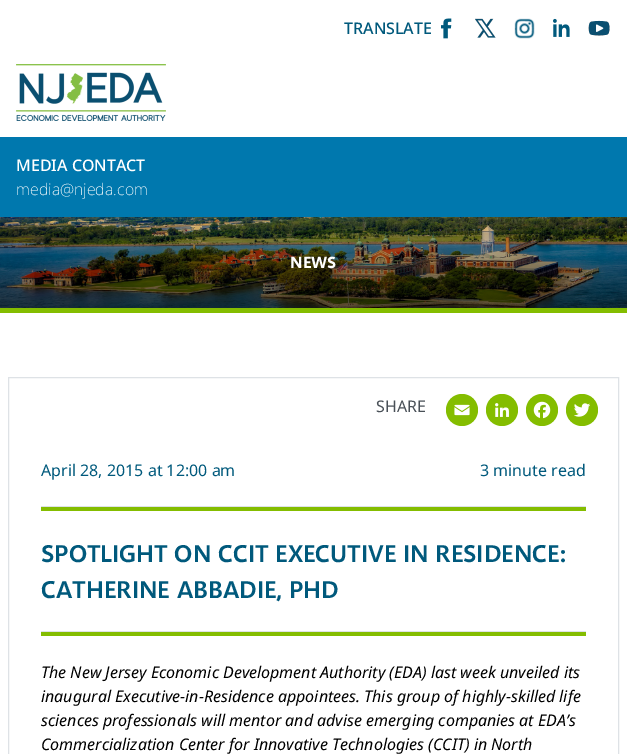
%!PS-Adobe-3.0
%%BoundingBox: 0 0 627 754
%%LanguageLevel: 3
%%Pages: 1
%%EndComments
%%BeginProlog
/setink { 3 { 255 div 3 1 roll } repeat setrgbcolor } def
/usefont { [ exch dup neg 0 0 3 -1 roll 0 0 ] selectfont } def
/drawtext { setink usefont moveto show } def
/fillbox { setink rectfill } def
/disc { newpath 0 360 arc closepath } def
/drawimage { 5 dict begin { /h /w /y /x /name } { exch def } forall
  gsave x y translate w h scale
  w h 8 [w 0 0 h 0 0] name (r) file false 3 colorimage grestore end } def
%%EndProlog
%%BeginSetup
<< /PageSize [627 754] >> setpagedevice
%%EndSetup
%%Page: 1 1
0 754 translate 1 -1 scale
4 setmiterlimit
0 0 627 754 255 255 255 fillbox
(TRANSLATE) 344 34 /NotoSans-Medium 16 0 89 124 drawtext
(assets/img1.rgb) 441 18 11 21 drawimage
(assets/img2.rgb) 475 18 21 20 drawimage
(assets/img3.rgb) 514 18 21 21 drawimage
(assets/img4.rgb) 553 18 17 19 drawimage
(assets/img5.rgb) 588 20 22 16 drawimage
(assets/img6.rgb) 16 64 150 57 drawimage
0 137 627 80 0 120 174 fillbox
(MEDIA CONTACT) 16 171 /NotoSans-Medium 16 255 255 255 drawtext
(media@njeda.com) 16 195 /NotoSans-ExtraLight 16 255 255 255 drawtext
(assets/img7.rgb) 0 217 627 91 drawimage
0 308 627 5 132 189 0 fillbox
(NEWS) 290 268 /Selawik-Bold 16 255 255 255 drawtext
222 226 230 setink
8.5 377.5 610 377 rectstroke
(SHARE) 376 412 /NotoSans-Regular 16 73 80 87 drawtext
132 189 0 setink
462 410 16 disc fill
(assets/img8.rgb) 454 404 16 12 drawimage
502 410 16 disc fill
(assets/img9.rgb) 495 403 14 14 drawimage
542 410 16 disc fill
(assets/img10.rgb) 533 401 18 18 drawimage
582 410 16 disc fill
(assets/img11.rgb) 574 403 16 14 drawimage
(April 28, 2015 at 12:00 am) 41 476 /NotoSans-Regular 16 0 89 124 drawtext
(3 minute read) 480 476 /NotoSans-Regular 16 0 89 124 drawtext
41 507 545 4 132 189 0 fillbox
41 506 545 1 222 226 230 fillbox
(SPOTLIGHT ON CCIT EXECUTIVE IN RESIDENCE:) 41 562 /Selawik-SemiBold 24 0 89 124 drawtext
(CATHERINE ABBADIE, PHD) 41 598 /Selawik-SemiBold 24 0 89 124 drawtext
41 632 545 4 132 189 0 fillbox
41 631 545 1 222 226 230 fillbox
(The New Jersey Economic Development Authority \(EDA\) last week unveiled its) 41 678 /NotoSans-Italic 16 0 0 0 drawtext
(inaugural Executive-in-Residence appointees. This group of highly-skilled life) 41 702 /NotoSans-Italic 16 0 0 0 drawtext
(sciences professionals will mentor and advise emerging companies at EDA’s) 41 726 /NotoSans-Italic 16 0 0 0 drawtext
(Commercialization Center for Innovative Technologies \(CCIT\) in North) 41 750 /NotoSans-Italic 16 0 0 0 drawtext
showpage
%%EOF
